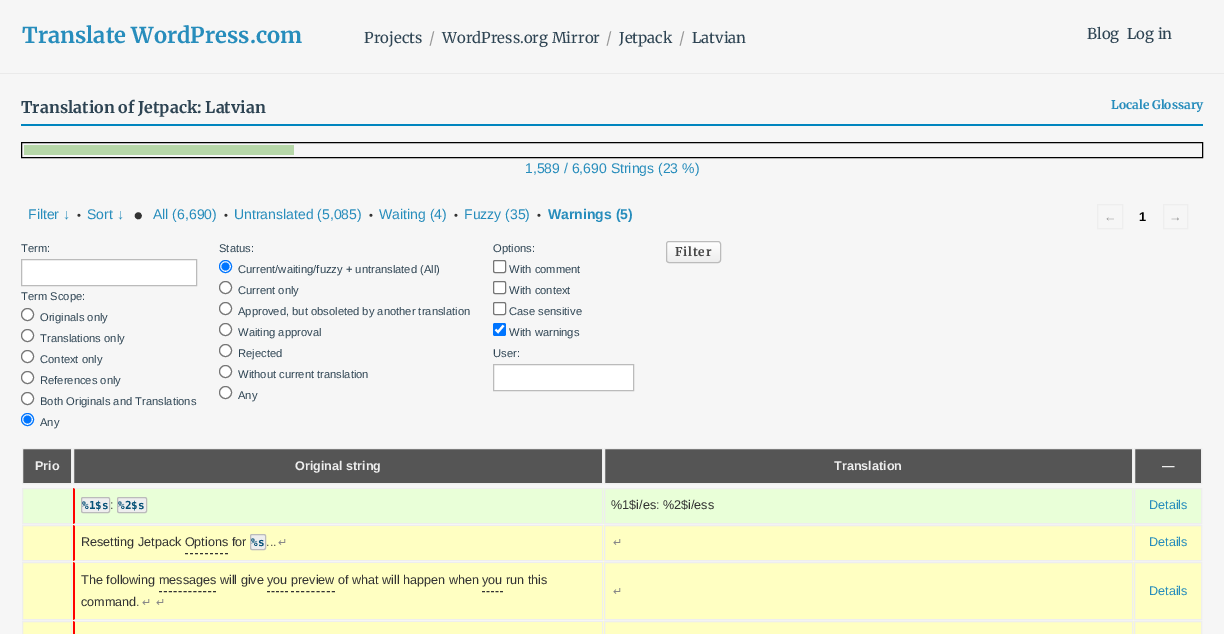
%!PS-Adobe-3.0
%%BoundingBox: 0 0 1224 634
%%LanguageLevel: 3
%%Pages: 1
%%EndComments
%%BeginProlog
/setink { 3 { 255 div 3 1 roll } repeat setrgbcolor } def
/usefont { [ exch dup neg 0 0 3 -1 roll 0 0 ] selectfont } def
/drawtext { setink usefont moveto show } def
/fillbox { setink rectfill } def
/disc { newpath 0 360 arc closepath } def
/rrect { 5 dict begin { /r /h /w /y /x } { exch def } forall
  x r add y moveto x w add y 2 copy h add r arct x w add y h add x 1 index r arct
  x y h add x y r arct x y 2 copy exch w add exch r arct closepath end } def
%%EndProlog
%%BeginSetup
<< /PageSize [1224 634] >> setpagedevice
%%EndSetup
%%Page: 1 1
0 634 translate 1 -1 scale
4 setmiterlimit
0 0 1224 634 246 246 246 fillbox
0 73 1224 1 234 234 234 fillbox
(Translate WordPress.com) 22 43 /Merriweather-Bold 21.9 39 141 188 drawtext
(Projects) 364 43 /Merriweather-Regular 14.9 46 68 83 drawtext
(/) 429 43 /Merriweather-Regular 14.9 153 153 153 drawtext
(WordPress.org Mirror) 442 43 /Merriweather-Regular 14.9 46 68 83 drawtext
(/) 606 43 /Merriweather-Regular 14.9 153 153 153 drawtext
(Jetpack) 619 43 /Merriweather-Regular 14.9 46 68 83 drawtext
(/) 679 43 /Merriweather-Regular 14.9 153 153 153 drawtext
(Latvian) 692 43 /Merriweather-Regular 14.9 46 68 83 drawtext
(Blog) 1087 39 /Merriweather-Regular 14.9 46 68 83 drawtext
(Log in) 1127 39 /Merriweather-Regular 14.9 46 68 83 drawtext
21 124 1182 2 0 133 190 fillbox
(Translation of Jetpack: Latvian) 21 113 /Merriweather-Bold 16 46 68 83 drawtext
(Locale Glossary) 1111 109 /Merriweather-Bold 12 39 141 188 drawtext
0 0 0 setink
21.5 142.5 1181 15 rectstroke
24 145 270 10 182 215 168 fillbox
(1,589 / 6,690 Strings \(23 %\)) 525 173 /LiberationSans-Regular 14 39 141 188 drawtext
(Filter ↓) 28 219 /LiberationSans-Regular 14 39 141 188 drawtext
(•) 77 219 /LiberationSans-Regular 11.2 51 51 51 drawtext
(Sort ↓) 87 219 /LiberationSans-Regular 14 39 141 188 drawtext
(•) 134 224 /LiberationSans-Bold 25 51 51 51 drawtext
(All \(6,690\)) 153 219 /LiberationSans-Regular 14 39 141 188 drawtext
(•) 224 219 /LiberationSans-Regular 11.2 51 51 51 drawtext
(Untranslated \(5,085\)) 234 219 /LiberationSans-Regular 14 39 141 188 drawtext
(•) 369 219 /LiberationSans-Regular 11.2 51 51 51 drawtext
(Waiting \(4\)) 379 219 /LiberationSans-Regular 14 39 141 188 drawtext
(•) 454 219 /LiberationSans-Regular 11.2 51 51 51 drawtext
(Fuzzy \(35\)) 464 219 /LiberationSans-Regular 14 39 141 188 drawtext
(•) 537 219 /LiberationSans-Regular 11.2 51 51 51 drawtext
(Warnings \(5\)) 548 219 /LiberationSans-Bold 14 39 141 188 drawtext
(Term:) 21 252 /LiberationSans-Regular 11.2 46 68 83 drawtext
255 255 255 setink
21.5 259.5 moveto 196.5 259.5 lineto 196.5 285.5 lineto 21.5 285.5 lineto closepath gsave fill grestore
187 187 187 setink
stroke
(Term Scope:) 21 300 /LiberationSans-Regular 11.2 46 68 83 drawtext
255 255 255 setink
27.5 314.5 6 disc gsave fill grestore
118 118 118 setink
stroke
(Originals only) 40 321 /LiberationSans-Regular 11.2 46 68 83 drawtext
255 255 255 setink
27.5 335.5 6 disc gsave fill grestore
118 118 118 setink
stroke
(Translations only) 40 342 /LiberationSans-Regular 11.2 46 68 83 drawtext
255 255 255 setink
27.5 356.5 6 disc gsave fill grestore
118 118 118 setink
stroke
(Context only) 40 363 /LiberationSans-Regular 11.2 46 68 83 drawtext
255 255 255 setink
27.5 377.5 6 disc gsave fill grestore
118 118 118 setink
stroke
(References only) 40 384 /LiberationSans-Regular 11.2 46 68 83 drawtext
255 255 255 setink
27.5 398.5 6 disc gsave fill grestore
118 118 118 setink
stroke
(Both Originals and Translations) 40 405 /LiberationSans-Regular 11.2 46 68 83 drawtext
255 255 255 setink
27.5 419.5 6 disc gsave fill grestore
0 117 255 setink
stroke
27.5 419.5 4 disc fill
(Any) 40 426 /LiberationSans-Regular 11.2 46 68 83 drawtext
(Status:) 219 252 /LiberationSans-Regular 11.2 46 68 83 drawtext
255 255 255 setink
225.5 266.5 6 disc gsave fill grestore
0 117 255 setink
stroke
225.5 266.5 4 disc fill
(Current/waiting/fuzzy + untranslated \(All\)) 238 273 /LiberationSans-Regular 11.2 46 68 83 drawtext
255 255 255 setink
225.5 287.5 6 disc gsave fill grestore
118 118 118 setink
stroke
(Current only) 238 294 /LiberationSans-Regular 11.2 46 68 83 drawtext
255 255 255 setink
225.5 308.5 6 disc gsave fill grestore
118 118 118 setink
stroke
(Approved, but obsoleted by another translation) 238 315 /LiberationSans-Regular 11.2 46 68 83 drawtext
255 255 255 setink
225.5 329.5 6 disc gsave fill grestore
118 118 118 setink
stroke
(Waiting approval) 238 336 /LiberationSans-Regular 11.2 46 68 83 drawtext
255 255 255 setink
225.5 350.5 6 disc gsave fill grestore
118 118 118 setink
stroke
(Rejected) 238 357 /LiberationSans-Regular 11.2 46 68 83 drawtext
255 255 255 setink
225.5 371.5 6 disc gsave fill grestore
118 118 118 setink
stroke
(Without current translation) 238 378 /LiberationSans-Regular 11.2 46 68 83 drawtext
255 255 255 setink
225.5 392.5 6 disc gsave fill grestore
118 118 118 setink
stroke
(Any) 238 399 /LiberationSans-Regular 11.2 46 68 83 drawtext
(Options:) 493 252 /LiberationSans-Regular 11.2 46 68 83 drawtext
255 255 255 setink
493.5 260.5 12 12 1.5 rrect gsave fill grestore
118 118 118 setink
stroke
(With comment) 509 273 /LiberationSans-Regular 11.2 46 68 83 drawtext
255 255 255 setink
493.5 281.5 12 12 1.5 rrect gsave fill grestore
118 118 118 setink
stroke
(With context) 509 294 /LiberationSans-Regular 11.2 46 68 83 drawtext
255 255 255 setink
493.5 302.5 12 12 1.5 rrect gsave fill grestore
118 118 118 setink
stroke
(Case sensitive) 509 315 /LiberationSans-Regular 11.2 46 68 83 drawtext
0 117 255 setink
493 323 13 13 2 rrect fill
255 255 255 setink
2.1 setlinewidth
495.5 329.5 moveto 498 332 lineto 503.5 325.5 lineto stroke
(With warnings) 509 336 /LiberationSans-Regular 11.2 46 68 83 drawtext
(User:) 493 357 /LiberationSans-Regular 11.2 46 68 83 drawtext
255 255 255 setink
493.5 364.5 moveto 633.5 364.5 lineto 633.5 390.5 lineto 493.5 390.5 lineto closepath gsave fill grestore
187 187 187 setink
1 setlinewidth
stroke
gsave
666 241 55 22 3 rrect clip newpath
gsave 666 242 moveto 721 242 lineto 721 262 lineto 666 262 lineto closepath clip newpath
<< /ShadingType 2 /ColorSpace /DeviceRGB /Coords [694 262 694 242] /Extend [true true] /Function << /FunctionType 2 /Domain [0 1] /C0 [0.929 0.929 0.929] /C1 [1 1 1] /N 1 >> >> shfill grestore
grestore
666.5 241.5 54 21 2.5 rrect stroke
/Merriweather-Bold 12 usefont
70 70 70 setink
675 256 moveto 0.75 0 (Filter) ashow
238 238 238 setink
1097.5 204.5 25 24 rectstroke
(←) 1104 221 /LiberationSans-Regular 12.6 153 153 153 drawtext
(1) 1139 221 /LiberationSans-Bold 12.6 0 0 0 drawtext
238 238 238 setink
1163.5 204.5 24 24 rectstroke
(→) 1169 221 /LiberationSans-Regular 12.6 153 153 153 drawtext
85 85 85 setink
22.5 448.5 moveto 71.5 448.5 lineto 71.5 483.5 lineto 22.5 483.5 lineto closepath gsave fill grestore
238 238 238 setink
stroke
(Prio) 35 470 /LiberationSans-Bold 12.6 238 238 238 drawtext
85 85 85 setink
73.5 448.5 moveto 602.5 448.5 lineto 602.5 483.5 lineto 73.5 483.5 lineto closepath gsave fill grestore
238 238 238 setink
stroke
(Original string) 295 470 /LiberationSans-Bold 12.6 238 238 238 drawtext
85 85 85 setink
604.5 448.5 moveto 1132.5 448.5 lineto 1132.5 483.5 lineto 604.5 483.5 lineto closepath gsave fill grestore
238 238 238 setink
stroke
(Translation) 834 470 /LiberationSans-Bold 12.6 238 238 238 drawtext
85 85 85 setink
1134.5 448.5 moveto 1201.5 448.5 lineto 1201.5 483.5 lineto 1134.5 483.5 lineto closepath gsave fill grestore
238 238 238 setink
stroke
(—) 1162 470 /LiberationSans-Bold 12.6 238 238 238 drawtext
23 488 1178 36 233 255 216 fillbox
238 238 238 setink
22.5 488.5 49 35 rectstroke
73 488 moveto 603 488 lineto 602 489 lineto 75 489 lineto closepath fill
602 488 1 36 238 238 238 fillbox
603 524 moveto 73 524 lineto 75 523 lineto 602 523 lineto closepath fill
255 0 0 setink
73 524 moveto 73 488 lineto 75 489 lineto 75 523 lineto closepath fill
238 238 238 setink
81.5 497.5 28 15 1.5 rrect gsave fill grestore
187 187 187 setink
stroke
(%1$s) 82 509 /DejaVuSansMono-Bold 11 6 81 119 drawtext
(:) 110 509 /LiberationSans-Regular 12.6 51 51 51 drawtext
238 238 238 setink
117.5 497.5 29 15 1.5 rrect gsave fill grestore
187 187 187 setink
stroke
(%2$s) 118 509 /DejaVuSansMono-Bold 11 6 81 119 drawtext
238 238 238 setink
604.5 488.5 528 35 rectstroke
(%1$i/es: %2$i/ess) 611 509 /LiberationSans-Regular 12.6 51 51 51 drawtext
238 238 238 setink
1134.5 488.5 67 35 rectstroke
(Details) 1149 509 /LiberationSans-Regular 12.6 39 141 188 drawtext
23 525 1178 36 255 255 194 fillbox
238 238 238 setink
22.5 525.5 49 35 rectstroke
73 525 moveto 603 525 lineto 602 526 lineto 75 526 lineto closepath fill
602 525 1 36 238 238 238 fillbox
603 561 moveto 73 561 lineto 75 560 lineto 602 560 lineto closepath fill
255 0 0 setink
73 561 moveto 73 525 lineto 75 526 lineto 75 560 lineto closepath fill
(Resetting Jetpack Options for) 81 546 /LiberationSans-Regular 12.6 51 51 51 drawtext
238 238 238 setink
250.5 534.5 15 15 1.5 rrect gsave fill grestore
187 187 187 setink
stroke
(%s) 251 546 /DejaVuSansMono-Bold 11 6 81 119 drawtext
(...) 266 546 /LiberationSans-Regular 12.6 51 51 51 drawtext
(↵) 278 546 /DejaVuSans-Regular 11 136 136 136 drawtext
51 51 51 setink
[3 2] 0 setdash
185 553.5 moveto 228 553.5 lineto stroke
238 238 238 setink
[] 0 setdash
604.5 525.5 528 35 rectstroke
(↵) 613 546 /DejaVuSans-Regular 11 136 136 136 drawtext
238 238 238 setink
1134.5 525.5 67 35 rectstroke
(Details) 1149 546 /LiberationSans-Regular 12.6 39 141 188 drawtext
23 562 1178 58 255 255 194 fillbox
238 238 238 setink
22.5 562.5 49 57 rectstroke
73 562 moveto 603 562 lineto 602 563 lineto 75 563 lineto closepath fill
602 562 1 58 238 238 238 fillbox
603 620 moveto 73 620 lineto 75 619 lineto 602 619 lineto closepath fill
255 0 0 setink
73 620 moveto 73 562 lineto 75 563 lineto 75 619 lineto closepath fill
(The following messages will give you preview of what will happen when you run this) 81 584 /LiberationSans-Regular 12.6 51 51 51 drawtext
[3 1.91] 0 setdash
159 591.5 moveto 216 591.5 lineto stroke
[3 1.5] 0 setdash
267 591.5 moveto 288 591.5 lineto stroke
[3 2.12] 0 setdash
291 591.5 moveto 335 591.5 lineto stroke
[3 1.5] 0 setdash
482 591.5 moveto 503 591.5 lineto stroke
(command.) 81 606 /LiberationSans-Regular 12.6 51 51 51 drawtext
(↵) 142 606 /DejaVuSans-Regular 11 136 136 136 drawtext
(↵) 156 606 /DejaVuSans-Regular 11 136 136 136 drawtext
238 238 238 setink
[] 0 setdash
604.5 562.5 528 57 rectstroke
(↵) 613 595 /DejaVuSans-Regular 11 136 136 136 drawtext
238 238 238 setink
1134.5 562.5 67 57 rectstroke
(Details) 1149 595 /LiberationSans-Regular 12.6 39 141 188 drawtext
23 621 1178 13 255 255 194 fillbox
238 238 238 setink
22.5 621.5 49 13 rectstroke
73 621 moveto 603 621 lineto 602 622 lineto 75 622 lineto closepath fill
602 621 1 13 238 238 238 fillbox
255 0 0 setink
73 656 moveto 73 621 lineto 75 622 lineto 75 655 lineto closepath fill
238 238 238 setink
604.5 621.5 528 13 rectstroke
1134.5 621.5 67 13 rectstroke
showpage
%%EOF
